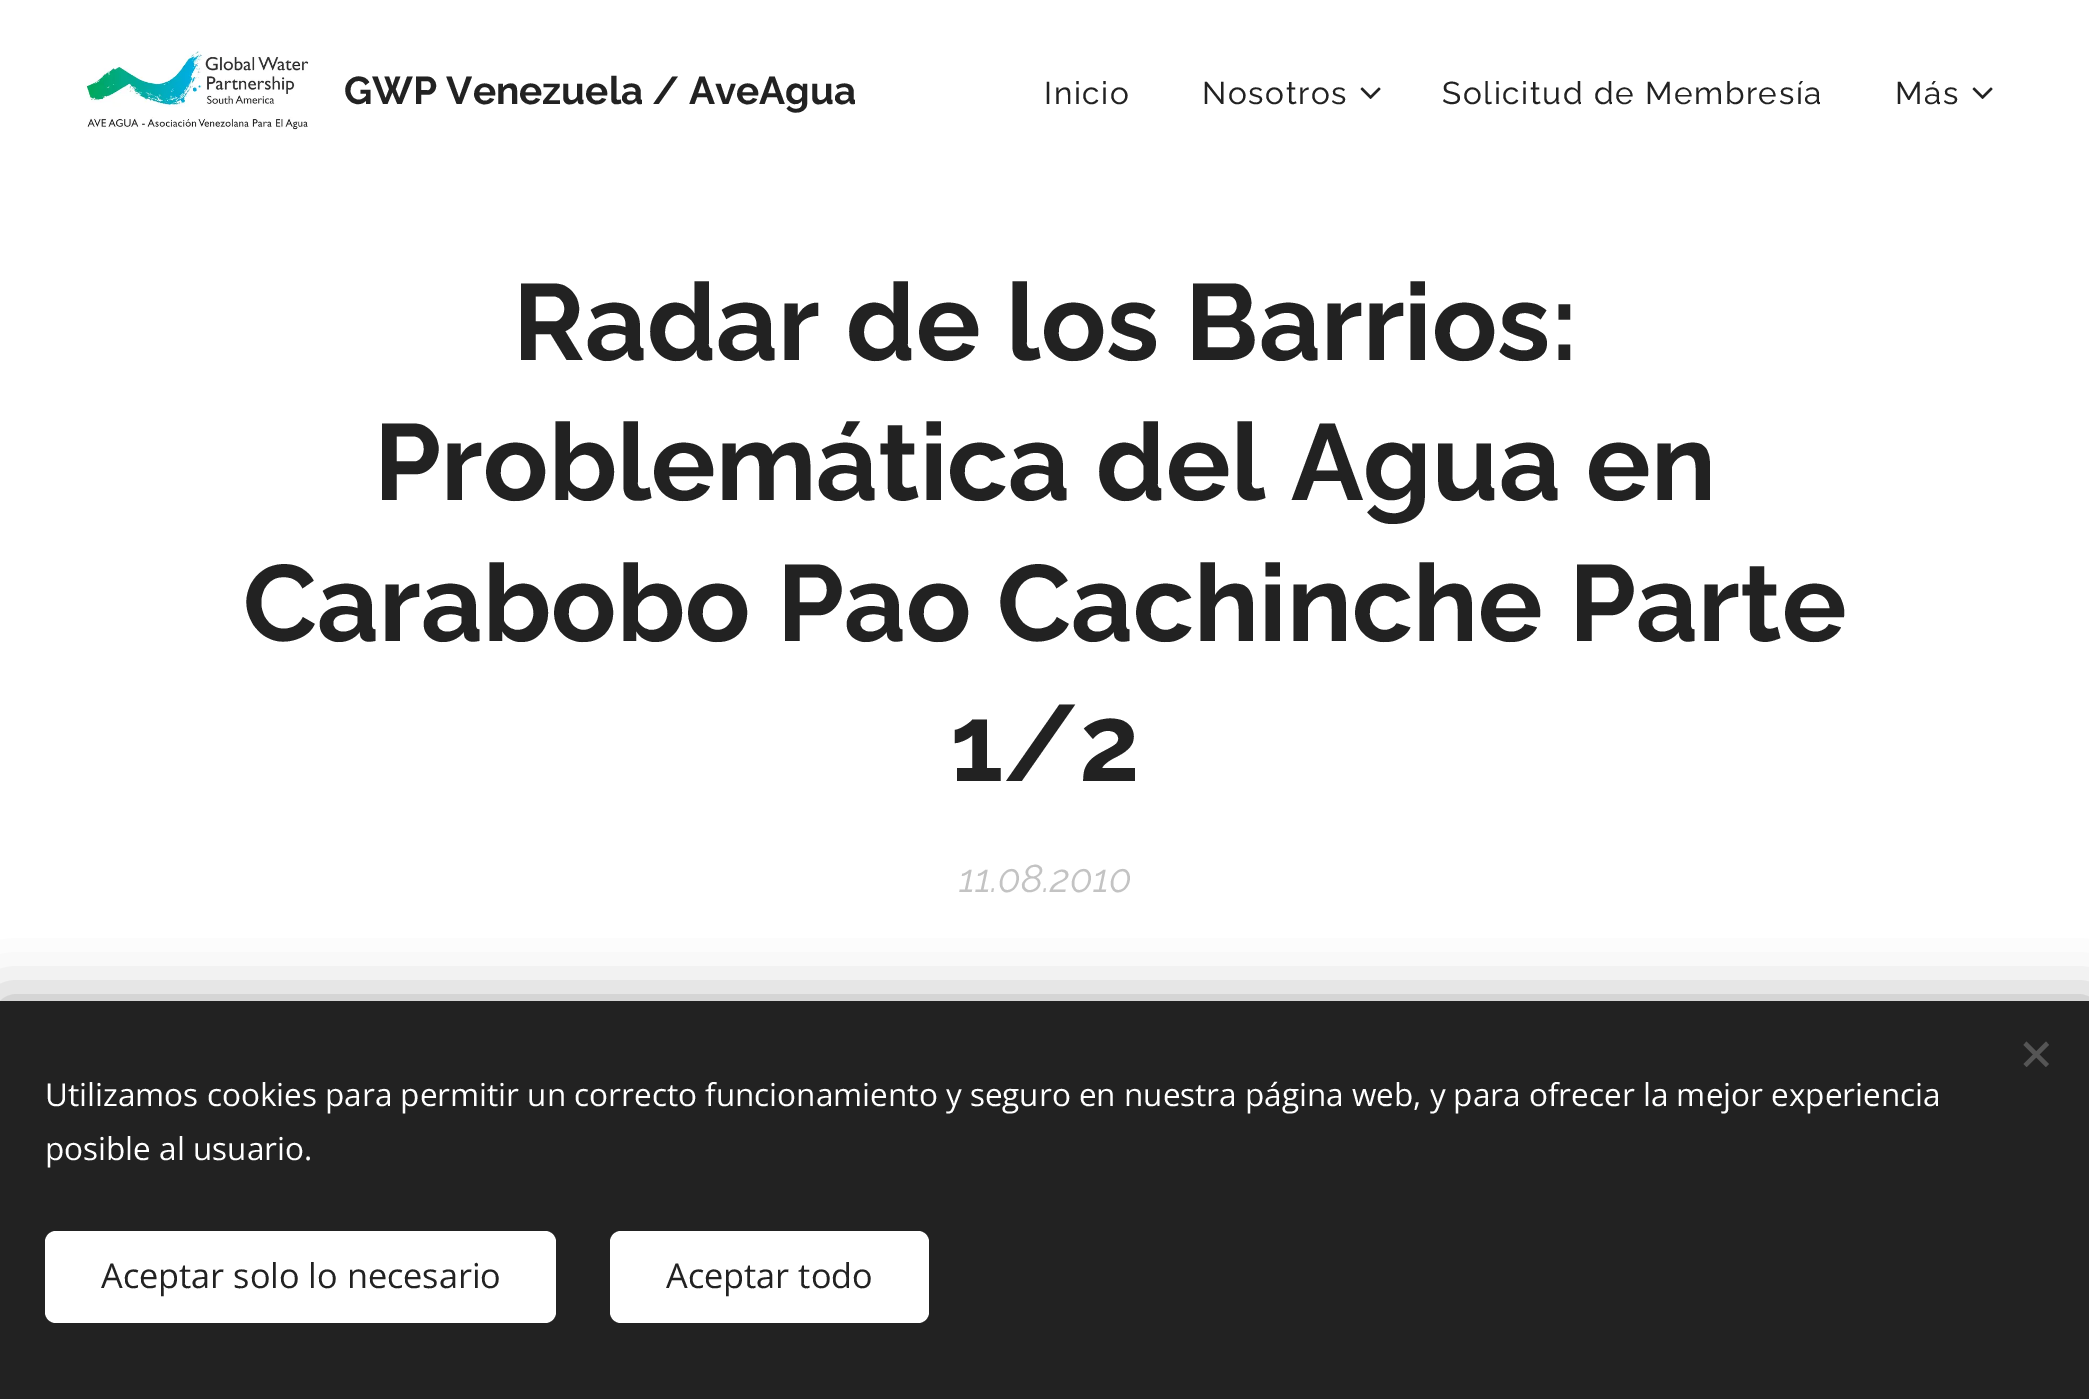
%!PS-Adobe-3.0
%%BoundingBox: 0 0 2089 1399
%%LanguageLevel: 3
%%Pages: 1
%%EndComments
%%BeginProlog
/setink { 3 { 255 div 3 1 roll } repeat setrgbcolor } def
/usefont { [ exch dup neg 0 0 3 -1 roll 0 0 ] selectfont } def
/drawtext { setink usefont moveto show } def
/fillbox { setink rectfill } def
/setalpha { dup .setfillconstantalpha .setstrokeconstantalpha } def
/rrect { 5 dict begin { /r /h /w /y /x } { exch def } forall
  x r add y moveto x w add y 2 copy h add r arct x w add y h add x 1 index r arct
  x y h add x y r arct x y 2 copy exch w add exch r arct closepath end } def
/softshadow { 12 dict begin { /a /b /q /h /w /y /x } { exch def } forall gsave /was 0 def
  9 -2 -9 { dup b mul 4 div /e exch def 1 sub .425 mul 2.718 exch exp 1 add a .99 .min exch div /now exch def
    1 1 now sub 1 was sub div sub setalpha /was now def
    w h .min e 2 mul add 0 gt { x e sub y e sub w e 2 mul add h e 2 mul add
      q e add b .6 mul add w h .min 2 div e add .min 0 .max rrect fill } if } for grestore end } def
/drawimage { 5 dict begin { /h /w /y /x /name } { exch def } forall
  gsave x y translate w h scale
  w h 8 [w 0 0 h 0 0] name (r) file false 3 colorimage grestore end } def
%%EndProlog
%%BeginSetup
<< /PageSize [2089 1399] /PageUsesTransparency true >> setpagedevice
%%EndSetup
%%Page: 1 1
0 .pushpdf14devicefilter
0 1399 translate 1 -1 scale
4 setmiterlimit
0 0 2089 1399 255 255 255 fillbox
(assets/img1.rgb) 85 51 224 79 drawimage
(GWP Venezuela / AveAgua) 344 104 /Raleway-Bold 38.75 34 34 34 drawtext
/Raleway-Regular 31.5 usefont
1044 104 moveto 1.6 0 (Inicio) ashow
1202 104 moveto 1.6 0 (Nosotros) ashow
(assets/img2.rgb) 1360 87 21 12 drawimage
1442 104 moveto 1.6 0 (Solicitud de Membresía) ashow
1895 104 moveto 1.6 0 (Más) ashow
(assets/img2.rgb) 1972 87 21 12 drawimage
(Radar de los Barrios:) 513 360 /Raleway-Bold 108 34 34 34 drawtext
(Problemática del Agua en) 374 500 /Raleway-Bold 108 34 34 34 drawtext
(Carabobo Pao Cachinche Parte) 243 641 /Raleway-Bold 108 34 34 34 drawtext
(1/2) 950 781 /Raleway-Bold 108 34 34 34 drawtext
(11.08.2010) 959 892 /Raleway-Italic 38.75 195 195 195 drawtext
0 0 0 setink
0 1001 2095 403 0 28 0.33 softshadow
0 1001 2089 398 34 34 34 fillbox
85 85 85 setink
2023.5 1064 moveto 2046 1041.5 lineto 2049 1045 lineto 2026.5 1067 lineto closepath fill
2026.5 1041.5 moveto 2049 1064 lineto 2046 1067 lineto 2023.5 1045 lineto closepath fill
(Utilizamos cookies para permitir un correcto funcionamiento y seguro en nuestra página web, y para ofrecer la mejor experiencia) 45 1106 /OpenSans-Regular 31.5 255 255 255 drawtext
(posible al usuario.) 45 1160 /OpenSans-Regular 31.5 255 255 255 drawtext
45 1231 511 92 11 rrect fill
(Aceptar solo lo necesario) 101 1288 /OpenSans-Regular 34.25 34 34 34 drawtext
255 255 255 setink
610 1231 319 92 11 rrect fill
(Aceptar todo) 666 1288 /OpenSans-Regular 34.25 34 34 34 drawtext
.poppdf14devicefilter showpage
%%EOF
